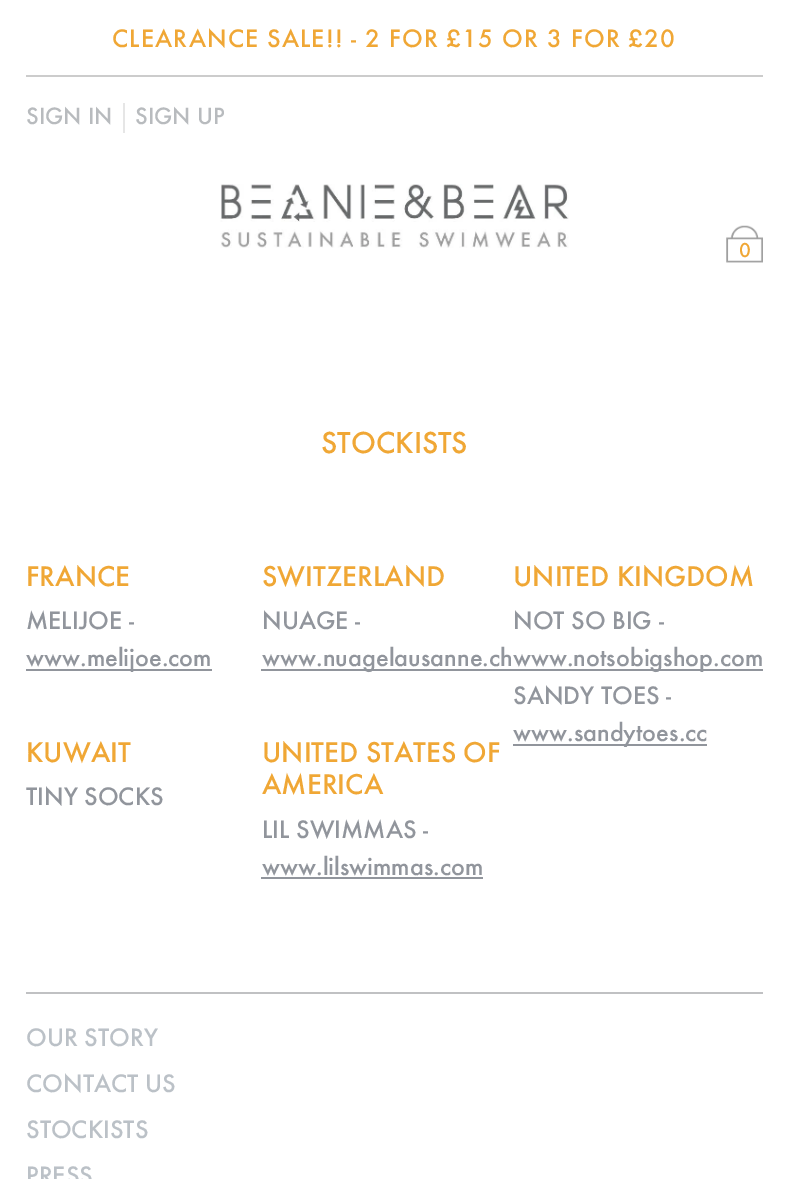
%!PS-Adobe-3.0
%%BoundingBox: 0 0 788 1179
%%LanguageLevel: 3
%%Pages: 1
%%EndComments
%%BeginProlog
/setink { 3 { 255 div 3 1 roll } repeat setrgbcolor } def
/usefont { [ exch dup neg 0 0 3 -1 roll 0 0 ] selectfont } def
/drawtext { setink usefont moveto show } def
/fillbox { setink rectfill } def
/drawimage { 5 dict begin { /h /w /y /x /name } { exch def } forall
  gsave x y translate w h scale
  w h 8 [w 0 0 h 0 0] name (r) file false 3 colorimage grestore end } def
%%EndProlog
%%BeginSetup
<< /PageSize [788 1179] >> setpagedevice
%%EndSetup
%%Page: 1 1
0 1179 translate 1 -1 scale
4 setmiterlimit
0 0 788 1179 255 255 255 fillbox
26 75 737 2 204 204 204 fillbox
/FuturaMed-Regular 26.25 usefont
240 167 53 setink
112 47 moveto 1.15 0 (CLEARANCE SALE!! - 2 FOR £15 OR 3 FOR £20) ashow
(SIGN IN) 26 124 /FuturaMed-Regular 24.5 184 187 190 drawtext
123 103 2 30 230 230 230 fillbox
(SIGN UP) 135 124 /FuturaMed-Regular 24.5 184 187 190 drawtext
(assets/img1.rgb) 220 184 349 64 drawimage
(assets/img2.rgb) 726 225 37 38 drawimage
(0) 739 257 /FuturaMed-Regular 21 240 167 53 drawtext
(STOCKISTS) 321 453 /FuturaMed-Regular 31.5 240 167 53 drawtext
(FRANCE) 26 586 /FuturaMed-Regular 29.75 240 167 53 drawtext
(MELIJOE -) 26 629 /FuturaMed-Regular 26.25 145 149 156 drawtext
26 669 186 2 145 149 156 fillbox
(www.melijoe.com) 26 666 /FuturaMed-Regular 26.25 145 149 156 drawtext
(KUWAIT) 26 762 /FuturaMed-Regular 29.75 240 167 53 drawtext
(TINY SOCKS) 26 805 /FuturaMed-Regular 26.25 145 149 156 drawtext
(SWITZERLAND) 262 586 /FuturaMed-Regular 29.75 240 167 53 drawtext
(NUAGE -) 262 629 /FuturaMed-Regular 26.25 145 149 156 drawtext
261 669 502 2 145 149 156 fillbox
(www.nuagelausanne.chwww.notsobigshop.com) 262 666 /FuturaMed-Regular 26.25 145 149 156 drawtext
(UNITED STATES OF) 262 762 /FuturaMed-Regular 29.75 240 167 53 drawtext
(AMERICA) 262 794 /FuturaMed-Regular 29.75 240 167 53 drawtext
(LIL SWIMMAS -) 262 838 /FuturaMed-Regular 26.25 145 149 156 drawtext
(www.lilswimmas.com) 262 875 /FuturaMed-Regular 26.25 145 149 156 drawtext
261 877 222 2 145 149 156 fillbox
(UNITED KINGDOM) 513 586 /FuturaMed-Regular 29.75 240 167 53 drawtext
(NOT SO BIG -) 513 629 /FuturaMed-Regular 26.25 145 149 156 drawtext
(SANDY TOES -) 513 704 /FuturaMed-Regular 26.25 145 149 156 drawtext
513 744 194 2 145 149 156 fillbox
(www.sandytoes.cc) 513 741 /FuturaMed-Regular 26.25 145 149 156 drawtext
26 992 737 2 192 193 195 fillbox
(OUR STORY) 26 1046 /FuturaMed-Regular 26.25 187 193 199 drawtext
(CONTACT US) 26 1092 /FuturaMed-Regular 26.25 187 193 199 drawtext
(STOCKISTS) 26 1138 /FuturaMed-Regular 26.25 187 193 199 drawtext
(PRESS) 26 1184 /FuturaMed-Regular 26.25 187 193 199 drawtext
showpage
%%EOF
